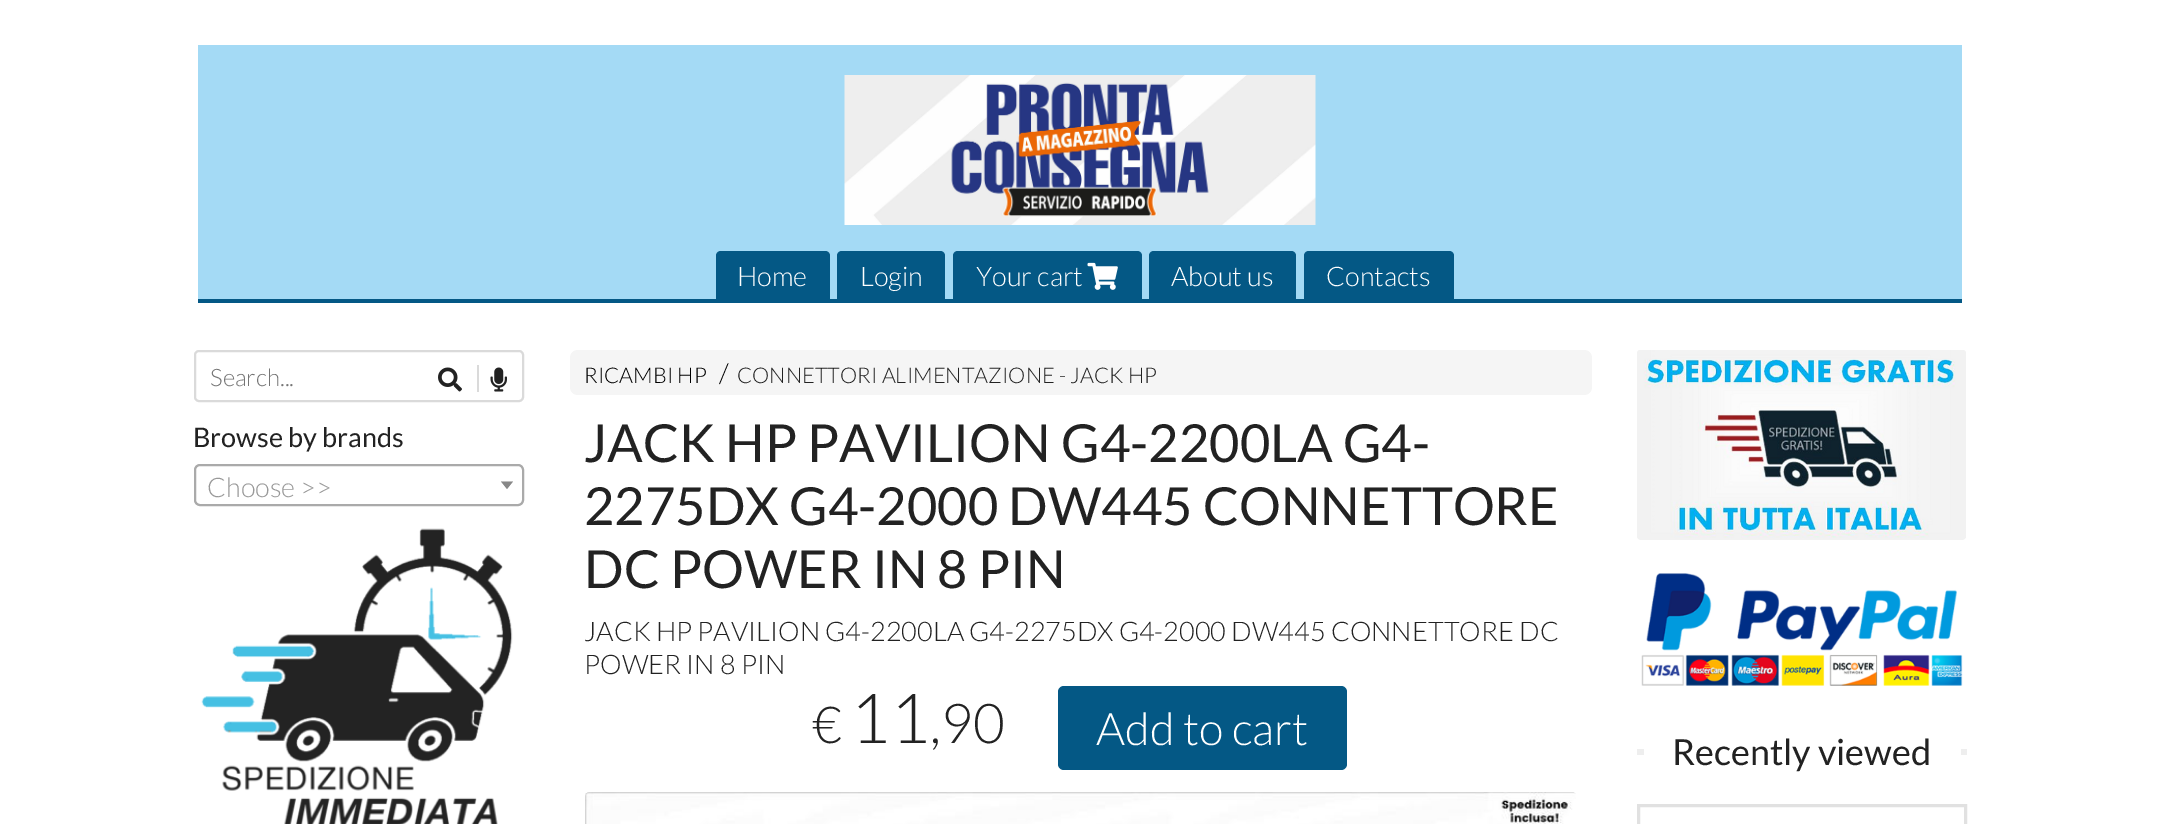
%!PS-Adobe-3.0
%%BoundingBox: 0 0 2159 824
%%LanguageLevel: 3
%%Pages: 1
%%EndComments
%%BeginProlog
/setink { 3 { 255 div 3 1 roll } repeat setrgbcolor } def
/usefont { [ exch dup neg 0 0 3 -1 roll 0 0 ] selectfont } def
/drawtext { setink usefont moveto show } def
/fillbox { setink rectfill } def
/rrect { 5 dict begin { /r /h /w /y /x } { exch def } forall
  x r add y moveto x w add y 2 copy h add r arct x w add y h add x 1 index r arct
  x y h add x y r arct x y 2 copy exch w add exch r arct closepath end } def
/drawimage { 5 dict begin { /h /w /y /x /name } { exch def } forall
  gsave x y translate w h scale
  w h 8 [w 0 0 h 0 0] name (r) file false 3 colorimage grestore end } def
%%EndProlog
%%BeginSetup
<< /PageSize [2159 824] >> setpagedevice
%%EndSetup
%%Page: 1 1
0 824 translate 1 -1 scale
4 setmiterlimit
0 0 2159 824 255 255 255 fillbox
198 45 1764 254 164 218 245 fillbox
198 299 1764 4 4 88 133 fillbox
(assets/img1.rgb) 844 75 472 150 drawimage
721 251 moveto 825 251 lineto 828 251 830 253 830 256 curveto 830 303 lineto 716 303 lineto 716 256 lineto 716 253 718 251 721 251 curveto closepath fill
(Home) 737 286 /Lato-Light 27 255 255 255 drawtext
4 88 133 setink
842 251 moveto 940 251 lineto 943 251 945 253 945 256 curveto 945 303 lineto 837 303 lineto 837 256 lineto 837 253 839 251 842 251 curveto closepath fill
(Login) 860 286 /Lato-Light 27 255 255 255 drawtext
4 88 133 setink
958 251 moveto 1137 251 lineto 1140 251 1142 253 1142 256 curveto 1142 303 lineto 953 303 lineto 953 256 lineto 953 253 955 251 958 251 curveto closepath fill
(Your cart) 976 286 /Lato-Light 27 255 255 255 drawtext
(assets/img2.rgb) 1087 262 31 28 drawimage
4 88 133 setink
1154 251 moveto 1291 251 lineto 1294 251 1296 253 1296 256 curveto 1296 303 lineto 1149 303 lineto 1149 256 lineto 1149 253 1151 251 1154 251 curveto closepath fill
(About us) 1171 286 /Lato-Light 27 255 255 255 drawtext
4 88 133 setink
1309 251 moveto 1449 251 lineto 1452 251 1454 253 1454 256 curveto 1454 303 lineto 1304 303 lineto 1304 256 lineto 1304 253 1306 251 1309 251 curveto closepath fill
(Contacts) 1326 286 /Lato-Light 27 255 255 255 drawtext
218 218 218 setink
2 setlinewidth
195 351 328 50 4 rrect stroke
(Search...) 210 386 /Lato-Light 24 117 117 117 drawtext
(assets/img3.rgb) 438 367 24 25 drawimage
477 365 2 27 218 218 218 fillbox
(assets/img4.rgb) 490 367 17 25 drawimage
(Browse by brands) 193 447 /Lato-Regular 27 34 34 34 drawtext
170 170 170 setink
195 465 328 40 5 rrect stroke
(Choose >>) 207 497 /Lato-Light 27 153 153 153 drawtext
136 136 136 setink
501 481.5 moveto 513 481.5 lineto 507 489 lineto closepath fill
(assets/img5.rgb) 201 528 312 296 drawimage
245 245 245 setink
570 350 1022 45 8 rrect fill
(RICAMBI HP) 584 383 /Lato-Light 21.6 0 0 0 drawtext
(/) 719 383 /Lato-Light 27 0 0 0 drawtext
(CONNETTORI ALIMENTAZIONE - JACK HP) 737 383 /Lato-Light 21.6 34 34 34 drawtext
(JACK HP PAVILION G4-2200LA G4-) 584 462 /Lato-Regular 52.5 34 34 34 drawtext
(2275DX G4-2000 DW445 CONNETTORE) 584 525 /Lato-Regular 52.5 34 34 34 drawtext
(DC POWER IN 8 PIN) 584 588 /Lato-Regular 52.5 34 34 34 drawtext
(JACK HP PAVILION G4-2200LA G4-2275DX G4-2000 DW445 CONNETTORE DC) 584 641 /Lato-Light 27 34 34 34 drawtext
(POWER IN 8 PIN) 584 674 /Lato-Light 27 34 34 34 drawtext
(€) 812 743 /Lato-Light 51 34 34 34 drawtext
(11) 850 743 /Lato-Light 69 34 34 34 drawtext
(,90) 930 743 /Lato-Light 55 34 34 34 drawtext
4 88 133 setink
1058 686 289 84 6 rrect fill
(Add to cart) 1096 745 /Lato-Light 45 255 255 255 drawtext
(assets/img6.rgb) 585 792 991 32 drawimage
(assets/img7.rgb) 1637 350 329 190 drawimage
(assets/img8.rgb) 1641 573 322 113 drawimage
1637 749 330 6 238 238 238 fillbox
1644 749 317 6 255 255 255 fillbox
(Recently viewed) 1672 765 /Lato-Regular 36 34 34 34 drawtext
225 225 225 setink
3 setlinewidth
1638.5 805.5 327 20 rectstroke
showpage
%%EOF
